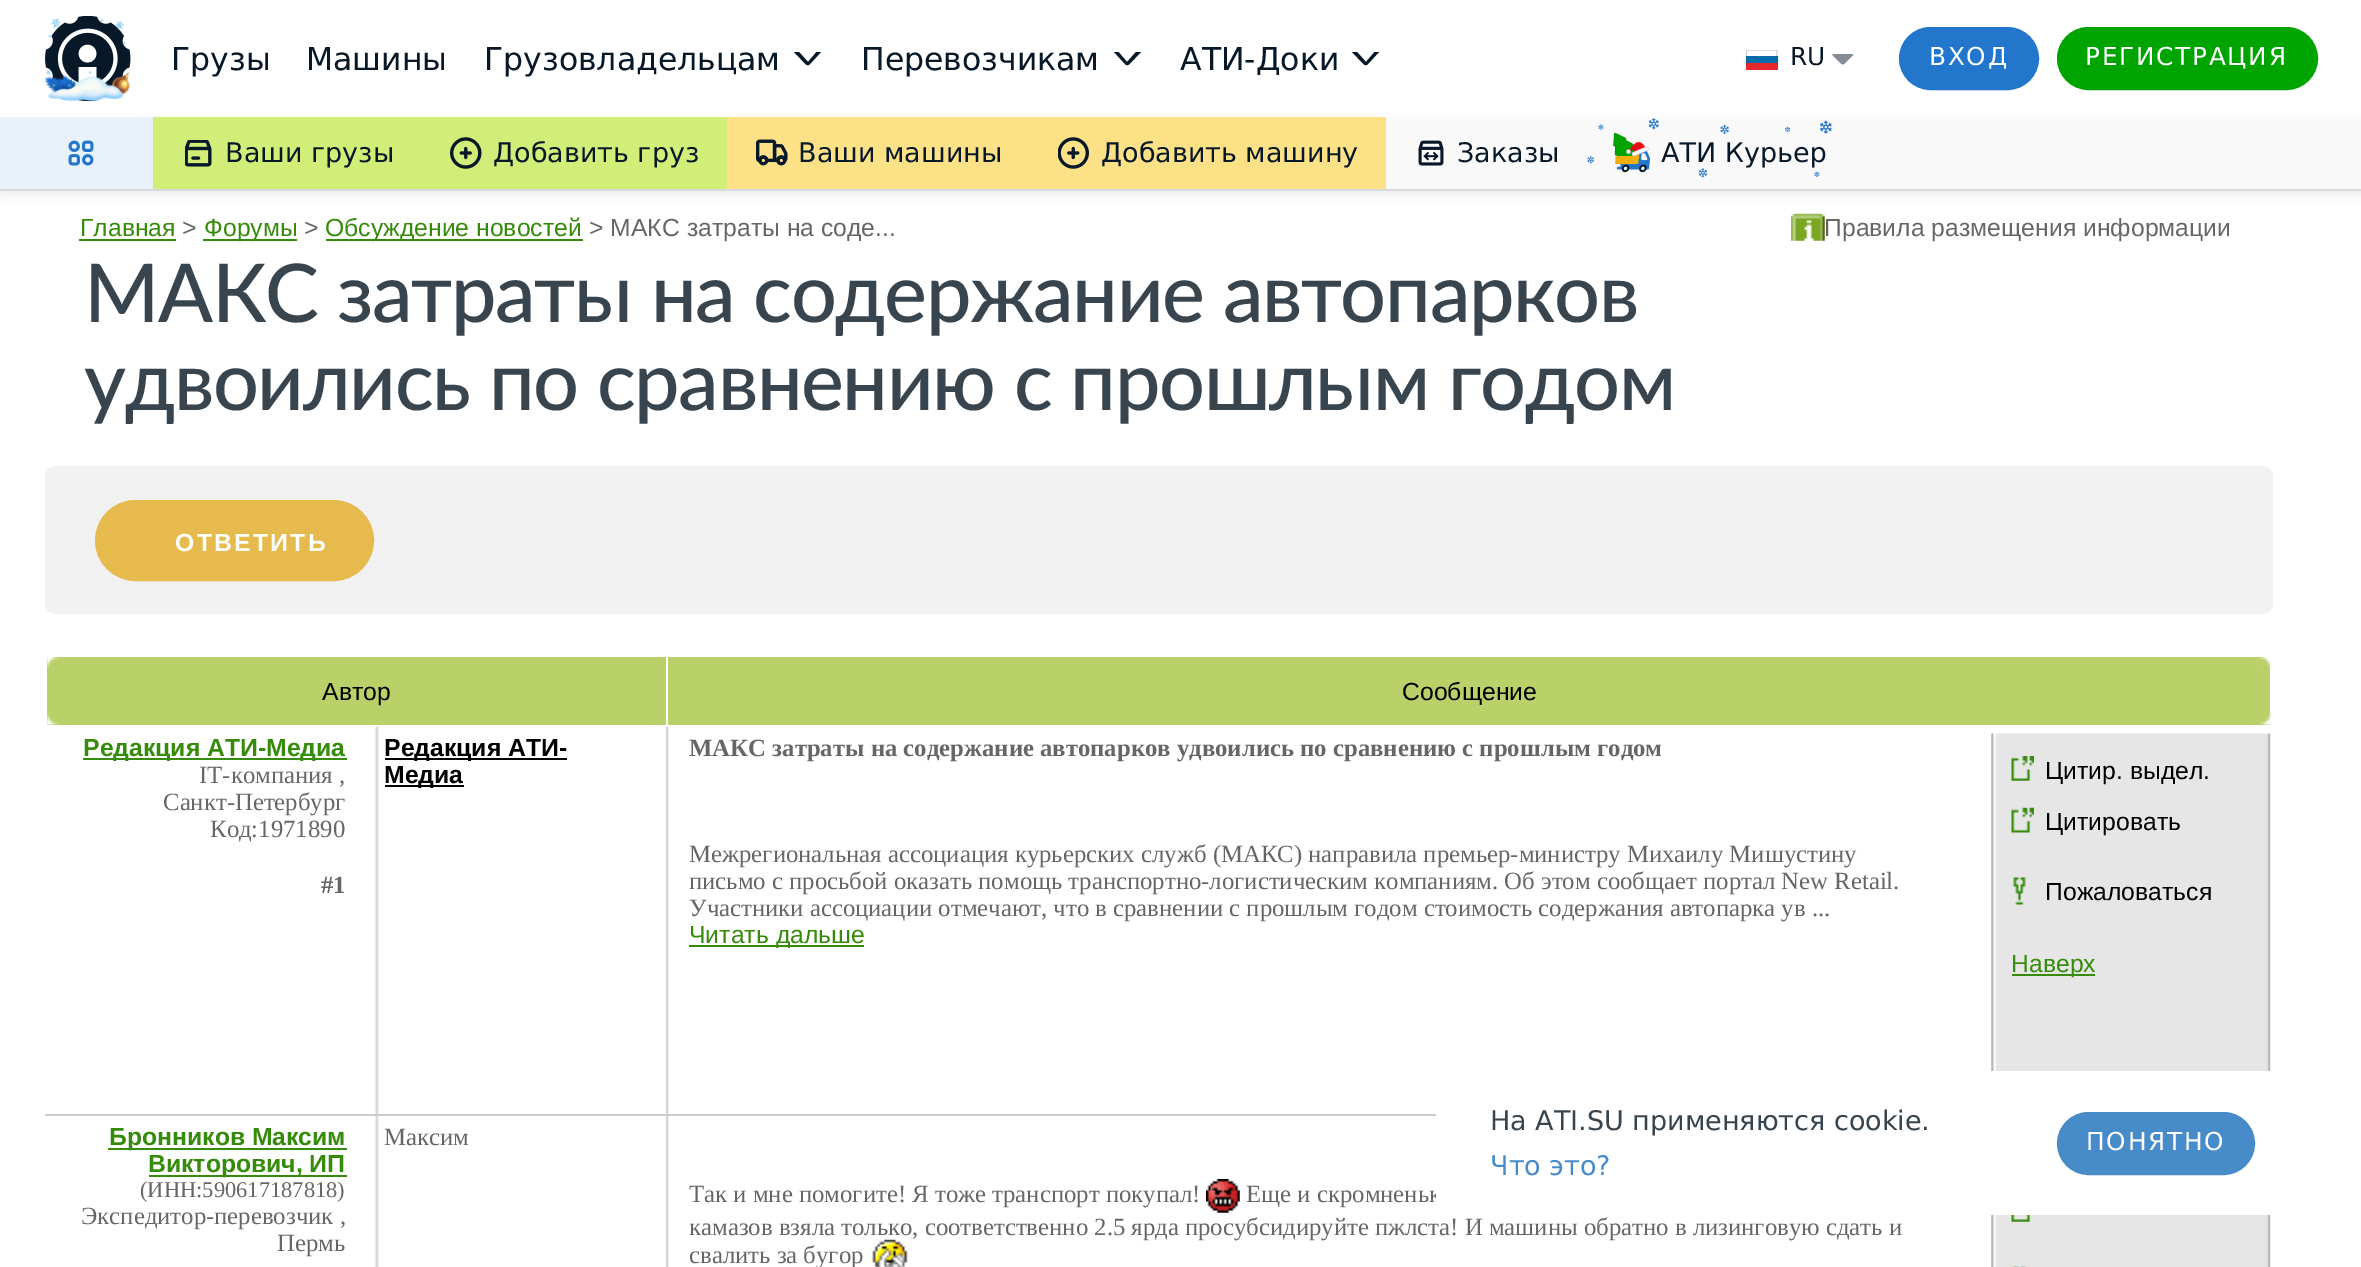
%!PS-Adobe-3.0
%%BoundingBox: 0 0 2361 1267
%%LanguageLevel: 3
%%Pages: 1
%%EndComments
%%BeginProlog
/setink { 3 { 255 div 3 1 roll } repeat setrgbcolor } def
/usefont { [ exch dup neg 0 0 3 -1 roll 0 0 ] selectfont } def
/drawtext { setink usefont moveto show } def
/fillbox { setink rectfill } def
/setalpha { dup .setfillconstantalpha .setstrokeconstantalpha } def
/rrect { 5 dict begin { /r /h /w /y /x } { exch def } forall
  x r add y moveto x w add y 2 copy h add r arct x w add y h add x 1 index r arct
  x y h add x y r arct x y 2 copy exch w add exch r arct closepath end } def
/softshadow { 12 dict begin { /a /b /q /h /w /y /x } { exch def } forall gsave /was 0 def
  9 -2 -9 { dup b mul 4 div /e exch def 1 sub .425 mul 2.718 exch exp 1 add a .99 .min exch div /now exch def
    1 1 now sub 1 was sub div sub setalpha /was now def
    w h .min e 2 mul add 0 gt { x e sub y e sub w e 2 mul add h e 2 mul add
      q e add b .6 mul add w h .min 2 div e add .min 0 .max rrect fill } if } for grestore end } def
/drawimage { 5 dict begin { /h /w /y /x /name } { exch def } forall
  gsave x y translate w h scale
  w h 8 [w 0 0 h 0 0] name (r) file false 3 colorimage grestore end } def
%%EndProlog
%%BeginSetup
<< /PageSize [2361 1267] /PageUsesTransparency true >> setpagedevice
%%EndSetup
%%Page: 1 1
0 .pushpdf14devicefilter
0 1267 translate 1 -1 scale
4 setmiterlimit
0 0 2361 1267 255 255 255 fillbox
(assets/img1.rgb) 45 16 86 85 drawimage
(assets/img2.rgb) 45 18 85 84 drawimage
(Грузы) 171 70 /DejaVuSans-Regular 31.5 7 24 41 drawtext
(Машины) 306 70 /DejaVuSans-Regular 31.5 7 24 41 drawtext
(Грузовладельцам) 484 70 /DejaVuSans-Regular 31.5 7 24 41 drawtext
799 52 moveto 794 52 lineto 805.5 64 lineto 806.5 65.5 809 65.5 810 64 curveto 821 52 lineto 816.5 52 lineto 808 62 lineto closepath eofill
(Перевозчикам) 861 70 /DejaVuSans-Regular 31.5 7 24 41 drawtext
1118.5 52 moveto 1114 52 lineto 1125 64 lineto 1126 65.5 1128.5 65.5 1129.5 64 curveto 1141 52 lineto 1136 52 lineto 1127 62 lineto closepath eofill
(АТИ-Доки) 1180 70 /DejaVuSans-Regular 31.5 7 24 41 drawtext
1357 52 moveto 1352 52 lineto 1363.5 64 lineto 1364.5 65.5 1367 65.5 1368 64 curveto 1379 52 lineto 1374.5 52 lineto 1366 62 lineto closepath eofill
(assets/img3.rgb) 1746 50 32 20 drawimage
(RU) 1790 65 /DejaVuSans-Regular 24.75 7 24 41 drawtext
(assets/img4.rgb) 1832 54 22 11 drawimage
34 119 204 setink
1900 28 138 61 30.5 rrect gsave fill grestore
2 setlinewidth
stroke
255 255 255 setink
1929 65 moveto 1.75 0 (ВХОД) ashow
0 164 0 setink
2058 28 259 61 30.5 rrect gsave fill grestore
stroke
255 255 255 setink
2085 65 moveto 1.75 0 (РЕГИСТРАЦИЯ) ashow
0 189 2361 2 230 232 234 fillbox
7 24 41 setink
0 122 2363 72 0 4.5 0.08 softshadow
1386 117 975 72 249 249 250 fillbox
0 117 153 72 233 241 250 fillbox
(assets/img5.rgb) 68 140 26 26 drawimage
153 117 574 72 211 238 120 fillbox
(assets/img6.rgb) 185 140 27 27 drawimage
(Ваши грузы) 225 162 /DejaVuSans-Regular 27 7 24 41 drawtext
(assets/img7.rgb) 450 137 32 32 drawimage
(Добавить груз) 493 162 /DejaVuSans-Regular 27 7 24 41 drawtext
727 117 659 72 253 225 134 fillbox
(assets/img8.rgb) 756 139 32 27 drawimage
(Ваши машины) 798 162 /DejaVuSans-Regular 27 7 24 41 drawtext
(assets/img9.rgb) 1058 137 31 32 drawimage
(Добавить машину) 1101 162 /DejaVuSans-Regular 27 7 24 41 drawtext
(assets/img10.rgb) 1418 140 26 26 drawimage
(Заказы) 1457 162 /DejaVuSans-Regular 27 7 24 41 drawtext
(assets/img12.rgb) 1613 133 38 40 drawimage
(АТИ Курьер) 1661 162 /DejaVuSans-Regular 27 7 24 41 drawtext
(assets/img11.rgb) 1587 118 245 60 drawimage
(Еще и скромненьк) 1246 1202 /LiberationSerif-Regular 24.75 102 102 102 drawtext
255 255 255 setink
1436 1071 873 144 14 rrect fill
(На ATI.SU применяются cookie.) 1490 1130 /DejaVuSans-Regular 27 56 68 78 drawtext
(Что это?) 1490 1175 /DejaVuSans-Regular 27 71 140 200 drawtext
2058 1113 196 61 30.5 rrect gsave fill grestore
stroke
/DejaVuSans-Regular 24.75 usefont
255 255 255 setink
2086 1150 moveto 1.75 0 (ПОНЯТНО) ashow
(Главная) 80 236 /LiberationSans-Regular 24.75 53 139 10 drawtext
79 239 97 2 53 139 10 fillbox
(>) 182 236 /LiberationSans-Regular 24.75 102 102 102 drawtext
203 239 94 2 53 139 10 fillbox
(Форумы) 204 236 /LiberationSans-Regular 24.75 53 139 10 drawtext
(>) 304 236 /LiberationSans-Regular 24.75 102 102 102 drawtext
326 239 257 2 53 139 10 fillbox
(Обсуждение новостей) 325 236 /LiberationSans-Regular 24.75 53 139 10 drawtext
(> МАКС затраты на соде...) 589 236 /LiberationSans-Regular 24.75 102 102 102 drawtext
(assets/img13.rgb) 1791 213 34 28 drawimage
(Правила размещения информации) 1824 236 /LiberationSans-Regular 24.75 102 102 102 drawtext
/Lato-Medium 81 usefont
56 68 78 setink
84 322 moveto -1.35 0 (МАКС затраты на содержание автопарков) ashow
84 410 moveto -1.35 0 (удвоились по сравнению с прошлым годом) ashow
241 241 241 setink
45 466 2228 148 11 rrect fill
230 186 77 setink
96 501 277 79 39.5 rrect gsave fill grestore
stroke
/LiberationSans-Bold 24.75 usefont
255 255 255 setink
175 551 moveto 2.25 0 (ОТВЕТИТЬ) ashow
47 657 619 68 186 209 105 fillbox
(assets/img14.rgb) 47 657 12 11 drawimage
(assets/img15.rgb) 47 713 12 12 drawimage
(Автор) 322 700 /LiberationSans-Regular 24.75 0 0 0 drawtext
668 657 1602 68 186 209 105 fillbox
(Сообщение) 1402 700 /LiberationSans-Regular 24.75 0 0 0 drawtext
(assets/img16.rgb) 2259 657 12 12 drawimage
(assets/img17.rgb) 2259 713 12 12 drawimage
(assets/img18.rgb) 375 726 294 388 drawimage
45 1114 1391 2 204 204 204 fillbox
(assets/img19.rgb) 1991 733 280 338 drawimage
83 758 264 2 53 139 10 fillbox
(Редакция АТИ-Медиа) 83 756 /LiberationSans-Bold 24.75 53 139 10 drawtext
(IT-компания ,) 199 783 /LiberationSerif-Regular 24.75 102 102 102 drawtext
(Санкт-Петербург) 163 810 /LiberationSerif-Regular 24.75 102 102 102 drawtext
(Код:1971890) 210 837 /LiberationSerif-Regular 24.75 102 102 102 drawtext
(#1) 321 893 /LiberationSerif-Bold 24.75 102 102 102 drawtext
385 758 182 2 0 0 0 fillbox
(Редакция АТИ-) 384 756 /LiberationSans-Bold 24.75 0 0 0 drawtext
385 785 79 2 0 0 0 fillbox
(Медиа) 384 783 /LiberationSans-Bold 24.75 0 0 0 drawtext
(МАКС затраты на содержание автопарков удвоились по сравнению с прошлым годом) 689 756 /LiberationSerif-Bold 24.75 102 102 102 drawtext
(Межрегиональная ассоциация курьерских служб \(МАКС\) направила премьер-министру Михаилу Мишустину) 689 862 /LiberationSerif-Regular 24.75 102 102 102 drawtext
(письмо с просьбой оказать помощь транспортно-логистическим компаниям. Об этом сообщает портал New Retail.) 689 889 /LiberationSerif-Regular 24.75 102 102 102 drawtext
(Участники ассоциации отмечают, что в сравнении с прошлым годом стоимость содержания автопарка ув ...) 689 916 /LiberationSerif-Regular 24.75 102 102 102 drawtext
689 945 175 2 53 139 10 fillbox
(Читать дальше) 689 943 /LiberationSans-Regular 24.75 53 139 10 drawtext
(assets/img20.rgb) 2011 756 23 25 drawimage
(Цитир. выдел.) 2045 779 /LiberationSans-Regular 24.75 0 0 0 drawtext
(assets/img21.rgb) 2011 807 23 26 drawimage
(Цитировать) 2045 830 /LiberationSans-Regular 24.75 0 0 0 drawtext
(assets/img22.rgb) 2013 877 13 28 drawimage
(Пожаловаться) 2045 900 /LiberationSans-Regular 24.75 0 0 0 drawtext
2012 974 83 2 53 139 10 fillbox
(Наверх) 2011 972 /LiberationSans-Regular 24.75 53 139 10 drawtext
(assets/img23.rgb) 375 1116 294 151 drawimage
(assets/img24.rgb) 1991 1215 280 52 drawimage
108 1148 239 2 53 139 10 fillbox
(Бронников Максим) 109 1145 /LiberationSans-Bold 24.75 53 139 10 drawtext
149 1175 198 2 53 139 10 fillbox
(Викторович, ИП) 148 1172 /LiberationSans-Bold 24.75 53 139 10 drawtext
(\(ИНН:590617187818\)) 140 1197 /LiberationSerif-Regular 22.5 102 102 102 drawtext
(Экспедитор-перевозчик ,) 81 1224 /LiberationSerif-Regular 24.75 102 102 102 drawtext
(Пермь) 277 1251 /LiberationSerif-Regular 24.75 102 102 102 drawtext
(Максим) 384 1145 /LiberationSerif-Regular 24.75 102 102 102 drawtext
(Так и мне помогите! Я тоже транспорт покупал!) 689 1202 /LiberationSerif-Regular 24.75 102 102 102 drawtext
(assets/img25.rgb) 1206 1179 34 34 drawimage
(камазов взяла только, соответственно 2.5 ярда просубсидируйте пжлста! И машины обратно в лизинговую сдать и) 689 1235 /LiberationSerif-Regular 24.75 102 102 102 drawtext
(свалить за бугор) 689 1263 /LiberationSerif-Regular 24.75 102 102 102 drawtext
(assets/img26.rgb) 872 1239 36 28 drawimage
(assets/img27.rgb) 2011 1215 20 7 drawimage
(assets/img28.rgb) 2013 1266 13 1 drawimage
.poppdf14devicefilter showpage
%%EOF
